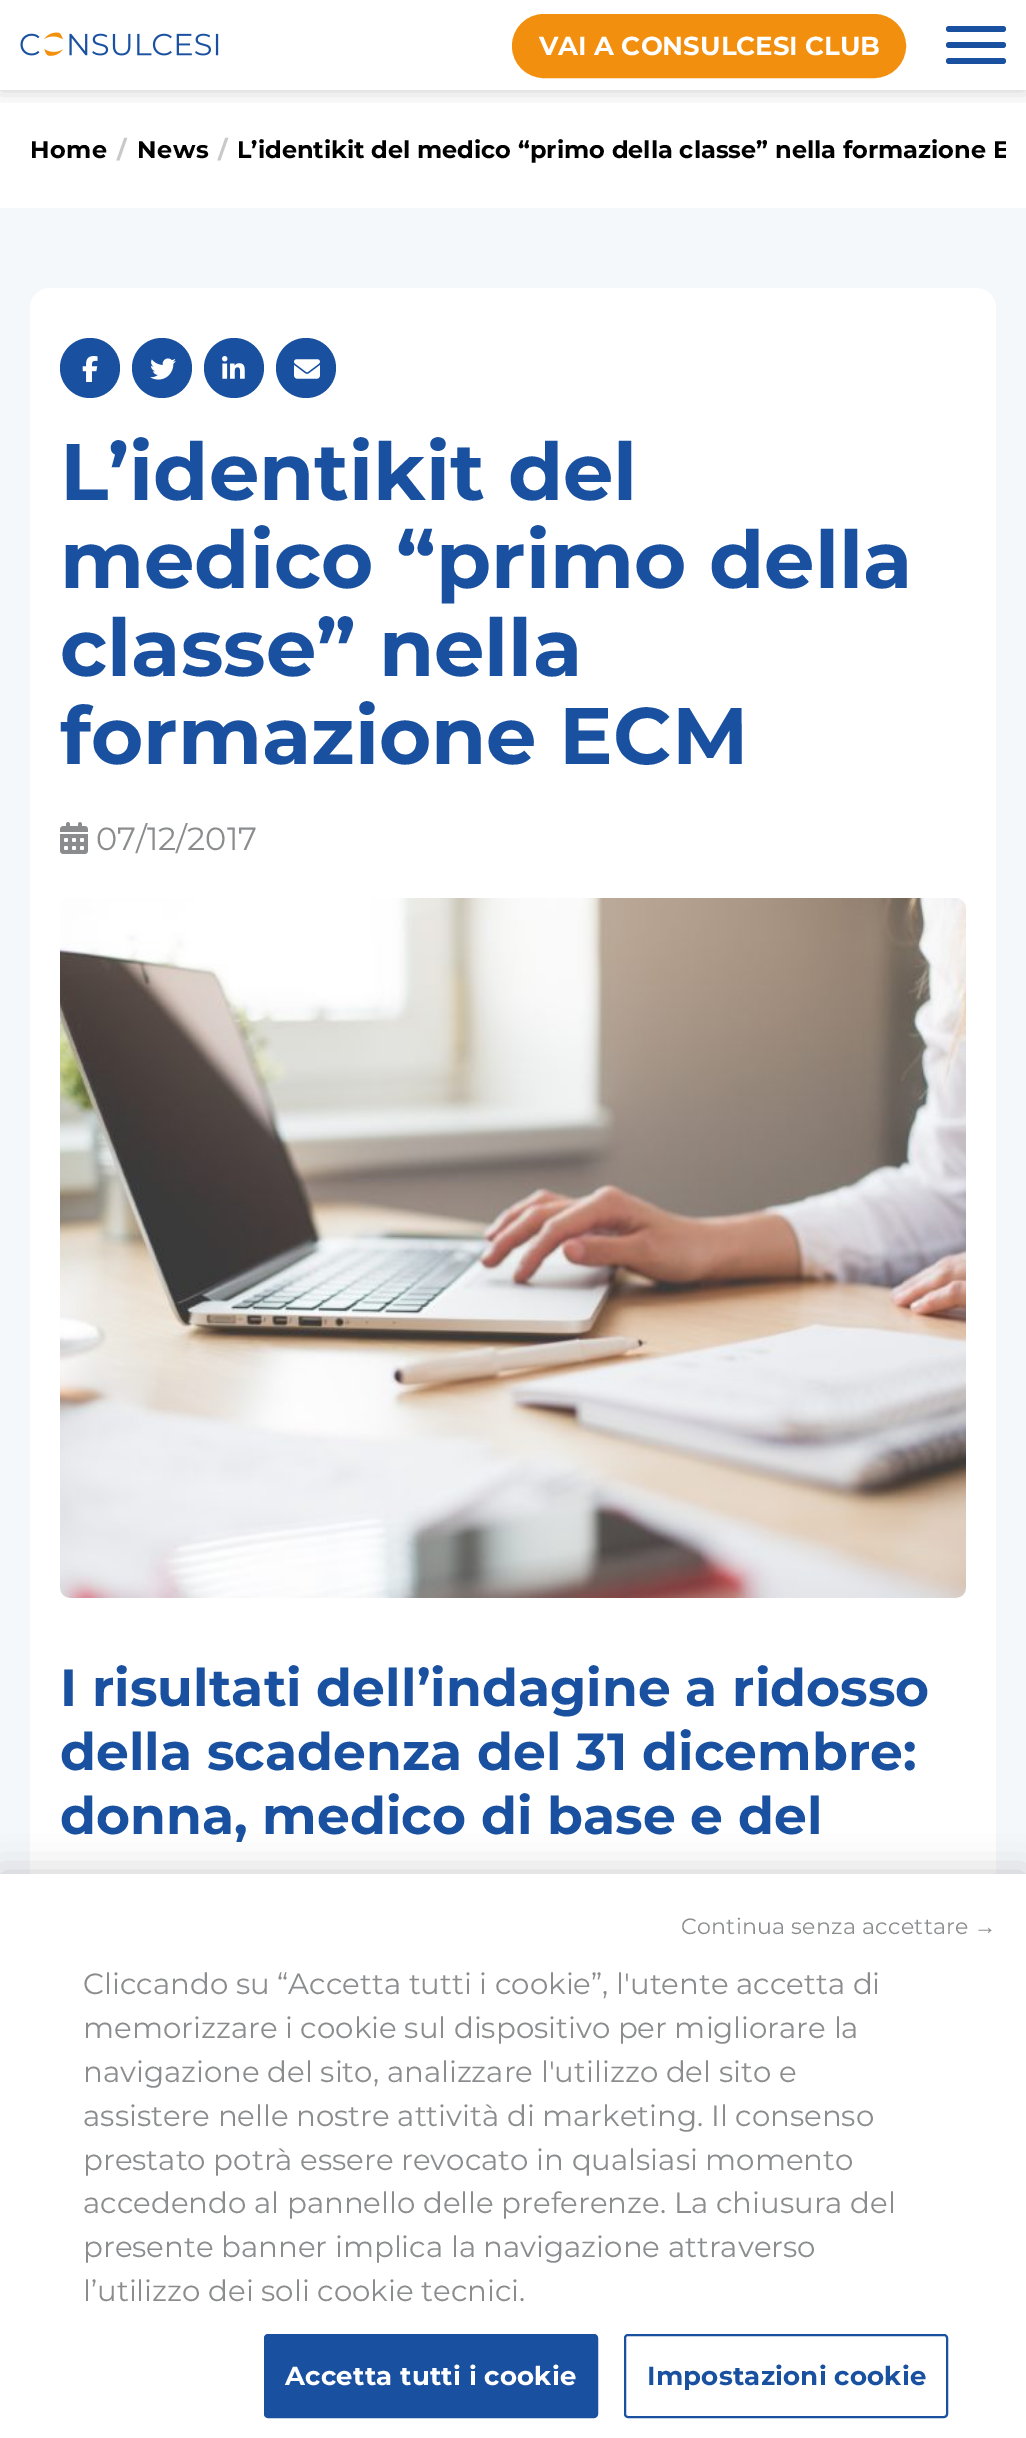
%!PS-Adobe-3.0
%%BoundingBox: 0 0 1026 2438
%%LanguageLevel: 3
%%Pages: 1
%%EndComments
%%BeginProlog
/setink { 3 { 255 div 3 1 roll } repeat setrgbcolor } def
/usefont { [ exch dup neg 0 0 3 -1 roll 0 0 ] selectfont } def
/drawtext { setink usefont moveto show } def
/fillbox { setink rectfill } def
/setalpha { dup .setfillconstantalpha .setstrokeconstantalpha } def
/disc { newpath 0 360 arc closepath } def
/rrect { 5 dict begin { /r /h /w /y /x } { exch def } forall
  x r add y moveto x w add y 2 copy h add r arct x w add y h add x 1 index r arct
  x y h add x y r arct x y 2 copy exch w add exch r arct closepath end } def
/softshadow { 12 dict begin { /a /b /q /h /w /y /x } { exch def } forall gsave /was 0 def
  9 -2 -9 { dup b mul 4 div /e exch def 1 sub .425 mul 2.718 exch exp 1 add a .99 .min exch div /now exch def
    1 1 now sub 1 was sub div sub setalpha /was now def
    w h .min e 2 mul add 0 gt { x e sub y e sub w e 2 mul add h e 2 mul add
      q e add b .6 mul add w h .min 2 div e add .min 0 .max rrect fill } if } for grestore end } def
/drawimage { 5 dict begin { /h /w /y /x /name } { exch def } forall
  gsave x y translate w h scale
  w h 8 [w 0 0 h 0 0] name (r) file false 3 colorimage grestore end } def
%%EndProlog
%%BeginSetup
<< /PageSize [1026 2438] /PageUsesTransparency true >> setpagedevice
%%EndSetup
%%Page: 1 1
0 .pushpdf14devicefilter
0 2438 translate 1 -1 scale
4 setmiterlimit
0 0 1026 2438 255 255 255 fillbox
gsave
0 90 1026 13 rectclip
0 0 0 setink
0 0 1026 90 0 10 0.2 softshadow
grestore
(assets/img1.rgb) 20 32 199 24 drawimage
242 143 14 setink
513 15 392 62 31 rrect gsave fill grestore
2 setlinewidth
stroke
(VAI A CONSULCESI CLUB) 539 55 /Montserrat-Bold 26 255 255 255 drawtext
25 81 160 setink
946 26 60 6 3 rrect fill
946 42 60 6 3 rrect fill
946 58 60 6 3 rrect fill
/Montserrat-Bold 24 usefont
0 0 0 setink
30 158 moveto 0.5 0 (Home) ashow
(/) 117 158 /Montserrat-Bold 24 201 201 201 drawtext
0 0 0 setink
137 158 moveto 0.5 0 (News) ashow
(/) 218 158 /Montserrat-Bold 24 201 201 201 drawtext
gsave
0 90 1006 118 rectclip
(L’identikit del medico “primo della classe” nella formazione E) 237 158 /Montserrat-Bold 24 0 0 0 drawtext
grestore
0 208 1026 1666 245 248 251 fillbox
255 255 255 setink
30 288 966 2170 20 rrect fill
25 81 160 setink
90 368 30 disc fill
(assets/img2.rgb) 82 356 16 26 drawimage
162 368 30 disc fill
(assets/img3.rgb) 150 358 26 22 drawimage
234 368 30 disc fill
(assets/img4.rgb) 222 356 23 23 drawimage
306 368 30 disc fill
(assets/img5.rgb) 294 359 26 20 drawimage
(L’identikit del) 60 500 /Montserrat-Bold 80 25 81 160 drawtext
(medico “primo della) 60 588 /Montserrat-Bold 80 25 81 160 drawtext
(classe” nella) 60 676 /Montserrat-Bold 80 25 81 160 drawtext
(formazione ECM) 60 764 /Montserrat-Bold 80 25 81 160 drawtext
(assets/img6.rgb) 60 822 28 32 drawimage
(07/12/2017) 96 850 /Montserrat-Regular 32 138 140 142 drawtext
(assets/img7.rgb) 60 898 906 700 drawimage
(I risultati dell’indagine a ridosso) 60 1706 /Montserrat-Bold 52 25 81 160 drawtext
(della scadenza del 31 dicembre:) 60 1770 /Montserrat-Bold 52 25 81 160 drawtext
(donna, medico di base e del) 60 1834 /Montserrat-Bold 52 25 81 160 drawtext
0 0 0 setink
0 1874 1026 564 0 18 0.2 softshadow
0 1874 1026 564 255 255 255 fillbox
/Montserrat-Regular 22.1 usefont
138 140 142 setink
681 1934 moveto 0.25 0 (Continua senza accettare) ashow
/LiberationSans-Regular 22.1 usefont
974 1934 moveto 0.25 0 (→) ashow
(Cliccando su “Accetta tutti i cookie”, l'utente accetta di) 83 1994 /Montserrat-Regular 29.25 138 140 142 drawtext
(memorizzare i cookie sul dispositivo per migliorare la) 83 2038 /Montserrat-Regular 29.25 138 140 142 drawtext
(navigazione del sito, analizzare l'utilizzo del sito e) 83 2082 /Montserrat-Regular 29.25 138 140 142 drawtext
(assistere nelle nostre attività di marketing. Il consenso) 83 2126 /Montserrat-Regular 29.25 138 140 142 drawtext
(prestato potrà essere revocato in qualsiasi momento) 83 2170 /Montserrat-Regular 29.25 138 140 142 drawtext
(accedendo al pannello delle preferenze. La chiusura del) 83 2213 /Montserrat-Regular 29.25 138 140 142 drawtext
(presente banner implica la navigazione attraverso) 83 2257 /Montserrat-Regular 29.25 138 140 142 drawtext
(l’utilizzo dei soli cookie tecnici.) 83 2301 /Montserrat-Regular 29.25 138 140 142 drawtext
25 81 160 setink
265 2335 332 82 3 rrect gsave fill grestore
stroke
/Montserrat-Bold 26 usefont
255 255 255 setink
285 2385 moveto 0.25 0 (Accetta tutti i cookie) ashow
25 81 160 setink
625 2335 322 82 3 rrect stroke
647 2385 moveto 0.25 0 (Impostazioni cookie) ashow
.poppdf14devicefilter showpage
%%EOF
